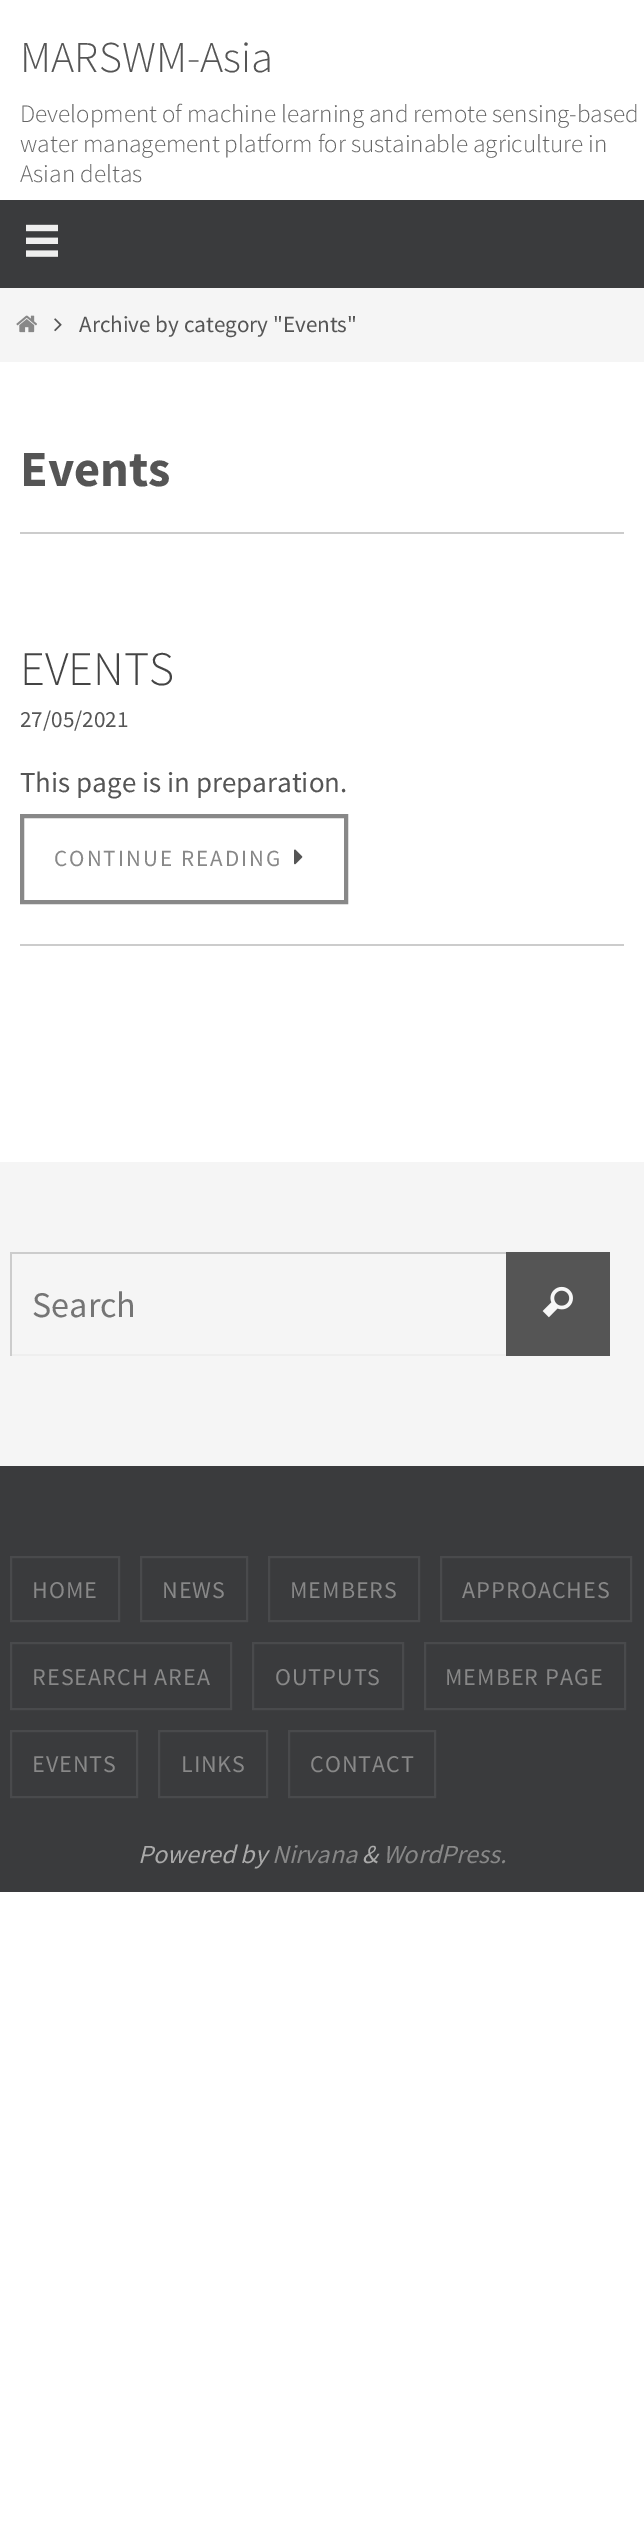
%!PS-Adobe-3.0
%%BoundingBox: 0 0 644 2547
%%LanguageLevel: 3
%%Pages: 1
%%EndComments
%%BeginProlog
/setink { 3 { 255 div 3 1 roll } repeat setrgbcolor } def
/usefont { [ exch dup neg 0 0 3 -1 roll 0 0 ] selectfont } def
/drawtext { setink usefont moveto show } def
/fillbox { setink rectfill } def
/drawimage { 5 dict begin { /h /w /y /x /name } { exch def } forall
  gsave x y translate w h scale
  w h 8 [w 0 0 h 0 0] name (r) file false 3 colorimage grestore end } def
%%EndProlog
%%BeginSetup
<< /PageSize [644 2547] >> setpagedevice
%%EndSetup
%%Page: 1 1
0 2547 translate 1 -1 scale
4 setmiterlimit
0 0 644 2547 255 255 255 fillbox
(MARSWM-Asia) 20 72 /SourceSansPro-Light 44 85 85 85 drawtext
(Development of machine learning and remote sensing-based) 20 122 /SourceSansPro-Light 25.1 102 102 102 drawtext
(water management platform for sustainable agriculture in) 20 152 /SourceSansPro-Light 25.1 102 102 102 drawtext
(Asian deltas) 20 182 /SourceSansPro-Light 25.1 102 102 102 drawtext
0 200 644 88 58 59 61 fillbox
(assets/img1.rgb) 26 224 32 33 drawimage
0 288 644 74 245 245 245 fillbox
(assets/img2.rgb) 16 315 21 18 drawimage
(assets/img3.rgb) 54 318 8 14 drawimage
(Archive by category "Events") 79 332 /SourceSansPro-Regular 23.1 85 85 85 drawtext
20 532 604 2 204 204 204 fillbox
(Events) 20 486 /SourceSansPro-Bold 50.5 85 85 85 drawtext
20 944 604 2 204 204 204 fillbox
(EVENTS) 20 685 /SourceSansPro-Light 48 68 68 68 drawtext
(27/05/2021) 20 727 /SourceSansPro-Regular 23.1 85 85 85 drawtext
(This page is in preparation.) 20 792 /SourceSansPro-Regular 28.9 85 85 85 drawtext
136 136 136 setink
4 setlinewidth
22 816 324 86 rectstroke
/SourceSansPro-Regular 23.1 usefont
54 866 moveto 2 0 (CONTINUE READING) ashow
(assets/img4.rgb) 294 849 9 16 drawimage
0 1162 644 304 245 245 245 fillbox
506 1252 104 104 85 85 85 fillbox
10 1252 496 2 204 204 204 fillbox
10 1354 496 2 238 238 238 fillbox
10 1252 2 104 204 204 204 fillbox
(Search) 32 1317 /SourceSansPro-Regular 36 117 117 117 drawtext
(assets/img5.rgb) 542 1286 31 32 drawimage
0 1466 644 426 58 59 61 fillbox
73 74 76 setink
2 setlinewidth
11 1557 108 64 rectstroke
/SourceSansPro-Regular 24 usefont
136 136 136 setink
32 1598 moveto 1 0 (HOME) ashow
73 74 76 setink
141 1557 106 64 rectstroke
136 136 136 setink
162 1598 moveto 1 0 (NEWS) ashow
73 74 76 setink
269 1557 150 64 rectstroke
136 136 136 setink
290 1598 moveto 1 0 (MEMBERS) ashow
73 74 76 setink
441 1557 190 64 rectstroke
136 136 136 setink
462 1598 moveto 1 0 (APPROACHES) ashow
73 74 76 setink
11 1643 220 66 rectstroke
136 136 136 setink
32 1685 moveto 1 0 (RESEARCH AREA) ashow
73 74 76 setink
253 1643 150 66 rectstroke
136 136 136 setink
275 1685 moveto 1 0 (OUTPUTS) ashow
73 74 76 setink
425 1643 200 66 rectstroke
136 136 136 setink
445 1685 moveto 1 0 (MEMBER PAGE) ashow
73 74 76 setink
11 1731 126 66 rectstroke
136 136 136 setink
32 1772 moveto 1 0 (EVENTS) ashow
73 74 76 setink
159 1731 108 66 rectstroke
136 136 136 setink
181 1772 moveto 1 0 (LINKS) ashow
73 74 76 setink
289 1731 146 66 rectstroke
136 136 136 setink
310 1772 moveto 1 0 (CONTACT) ashow
(Powered by) 138 1863 /SourceSansPro-Italic 26 170 170 170 drawtext
(Nirvana) 272 1863 /SourceSansPro-Italic 26 136 136 136 drawtext
(&) 362 1863 /SourceSansPro-Italic 26 170 170 170 drawtext
(WordPress.) 383 1863 /SourceSansPro-Italic 26 136 136 136 drawtext
showpage
%%EOF
